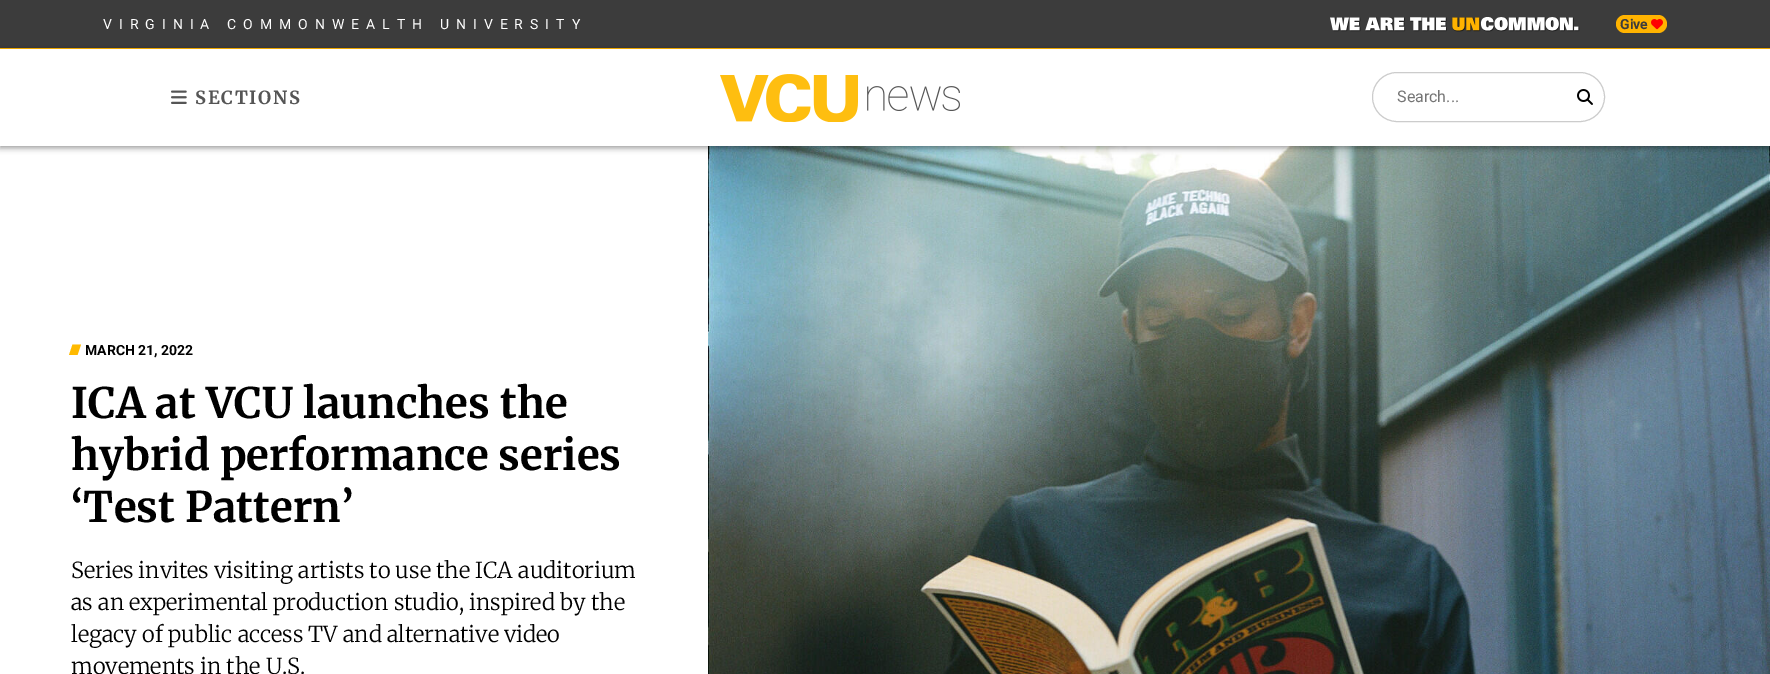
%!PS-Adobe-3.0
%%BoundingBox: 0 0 1770 674
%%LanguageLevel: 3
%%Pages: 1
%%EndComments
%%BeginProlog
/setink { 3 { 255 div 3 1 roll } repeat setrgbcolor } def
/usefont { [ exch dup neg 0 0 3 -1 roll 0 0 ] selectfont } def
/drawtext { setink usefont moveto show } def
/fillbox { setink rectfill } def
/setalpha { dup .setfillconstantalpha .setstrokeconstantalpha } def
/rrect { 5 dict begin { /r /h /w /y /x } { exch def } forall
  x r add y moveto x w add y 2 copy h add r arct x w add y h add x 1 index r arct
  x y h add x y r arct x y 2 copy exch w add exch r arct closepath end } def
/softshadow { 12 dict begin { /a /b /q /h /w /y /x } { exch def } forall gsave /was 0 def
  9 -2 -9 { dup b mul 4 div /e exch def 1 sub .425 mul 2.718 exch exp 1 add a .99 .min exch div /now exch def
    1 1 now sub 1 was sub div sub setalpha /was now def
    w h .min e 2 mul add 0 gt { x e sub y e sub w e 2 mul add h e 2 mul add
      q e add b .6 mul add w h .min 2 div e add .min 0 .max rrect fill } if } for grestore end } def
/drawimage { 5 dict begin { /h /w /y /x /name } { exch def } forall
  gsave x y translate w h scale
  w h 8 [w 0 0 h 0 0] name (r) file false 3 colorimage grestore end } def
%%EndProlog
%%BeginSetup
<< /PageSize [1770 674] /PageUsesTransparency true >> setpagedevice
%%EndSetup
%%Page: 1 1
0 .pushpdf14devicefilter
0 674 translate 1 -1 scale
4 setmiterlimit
0 0 1770 674 255 255 255 fillbox
0 0 1770 48 60 60 60 fillbox
/Roboto-Regular 14 usefont
255 255 255 setink
103 29 moveto 7 0 (VIRGINIA COMMONWEALTH UNIVERSITY) ashow
(assets/img1.rgb) 1330 17 250 15 drawimage
255 179 0 setink
1616 15 51 18 9 rrect fill
(Give) 1620 29 /Roboto-Bold 14 60 60 60 drawtext
(assets/img2.rgb) 1651 19 12 11 drawimage
0 48 1770 1 255 179 0 fillbox
(assets/img6.rgb) 708 146 1062 528 drawimage
gsave
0 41 moveto 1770 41 lineto 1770 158 lineto 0 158 lineto closepath 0 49 moveto 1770 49 lineto 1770 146 lineto 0 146 lineto closepath eoclip newpath
0 0 0 setink
0 51 1770 97 0 3 0.4 softshadow
grestore
(assets/img3.rgb) 171 90 16 14 drawimage
/Merriweather-Bold 18 usefont
85 85 85 setink
195 104 moveto 1.75 0 (SECTIONS) ashow
(assets/img4.rgb) 720 74 240 48 drawimage
204 204 204 setink
1372.5 72.5 232 49 24.5 rrect stroke
(Search...) 1397 102 /Roboto-Regular 16 117 117 117 drawtext
(assets/img5.rgb) 1577 89 16 16 drawimage
255 186 0 setink
72.5 344.5 moveto 81 344.5 lineto 77.5 355 lineto 69 355 lineto closepath fill
(MARCH 21, 2022) 85 355 /Roboto-Bold 14 0 0 0 drawtext
(ICA at VCU launches the) 71 418 /Merriweather-Bold 42 0 0 0 drawtext
(hybrid performance series) 71 470 /Merriweather-Bold 42 0 0 0 drawtext
(‘Test Pattern’) 71 522 /Merriweather-Bold 42 0 0 0 drawtext
(Series invites visiting artists to use the ICA auditorium) 71 578 /Merriweather-Light 22 0 0 0 drawtext
(as an experimental production studio, inspired by the) 71 610 /Merriweather-Light 22 0 0 0 drawtext
(legacy of public access TV and alternative video) 71 642 /Merriweather-Light 22 0 0 0 drawtext
(movements in the U.S.) 71 674 /Merriweather-Light 22 0 0 0 drawtext
.poppdf14devicefilter showpage
%%EOF
